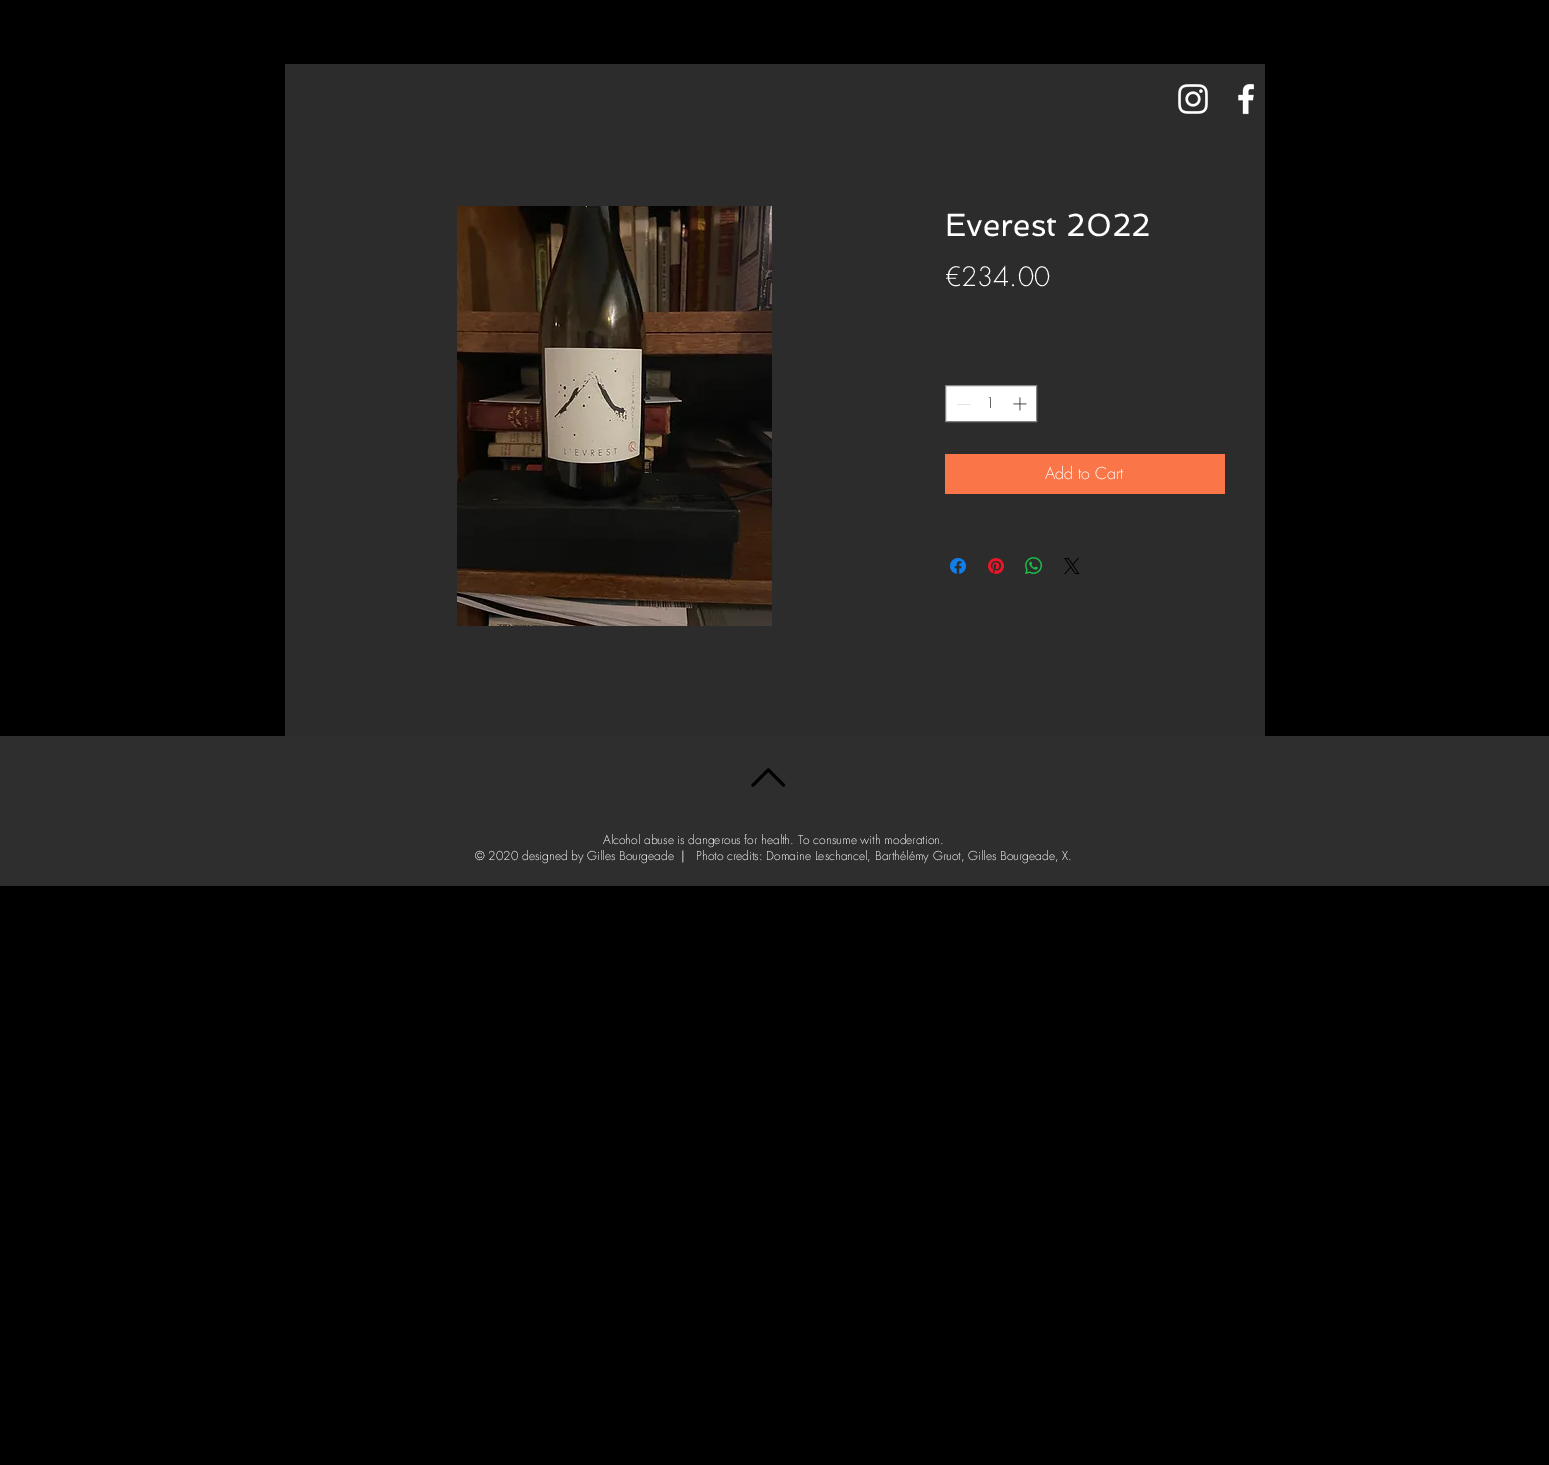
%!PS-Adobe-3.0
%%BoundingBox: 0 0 1549 1465
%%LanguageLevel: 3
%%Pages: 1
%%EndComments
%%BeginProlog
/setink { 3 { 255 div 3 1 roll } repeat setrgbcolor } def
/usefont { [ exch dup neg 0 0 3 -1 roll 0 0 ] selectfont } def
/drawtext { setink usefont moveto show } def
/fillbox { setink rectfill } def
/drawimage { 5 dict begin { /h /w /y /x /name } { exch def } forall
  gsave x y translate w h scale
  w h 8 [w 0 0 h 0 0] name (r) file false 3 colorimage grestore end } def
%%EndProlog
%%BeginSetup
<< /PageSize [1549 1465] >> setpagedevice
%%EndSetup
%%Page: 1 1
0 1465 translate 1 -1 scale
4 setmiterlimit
0 0 1549 1465 0 0 0 fillbox
285 64 980 672 44 44 44 fillbox
(assets/img1.rgb) 1178 84 30 30 drawimage
(assets/img2.rgb) 1238 83 17 32 drawimage
(assets/img3.rgb) 457 206 315 420 drawimage
(Everest 2022) 945 236 /Spinnaker-Regular 32 255 255 255 drawtext
(€234.00) 945 286 /futura-Light 26 255 255 255 drawtext
945.5 385.5 moveto 1036.5 385.5 lineto 1036.5 421.5 lineto 945.5 421.5 lineto closepath gsave fill grestore
131 131 131 setink
stroke
957 404 13 1 227 227 227 fillbox
(1) 986 408 /futura-Light 14 48 48 48 drawtext
(assets/img4.rgb) 1013 397 14 14 drawimage
945 454 280 40 250 117 72 fillbox
(Add to Cart) 1045 479 /futura-Light 16 255 255 255 drawtext
(assets/img5.rgb) 950 558 16 16 drawimage
(assets/img6.rgb) 988 558 16 16 drawimage
(assets/img7.rgb) 1025 557 17 17 drawimage
(assets/img8.rgb) 1064 558 16 16 drawimage
0 736 1549 150 47 46 46 fillbox
(assets/img9.rgb) 751 768 35 19 drawimage
(Alcohol abuse is dangerous for health. To consume with moderation.) 603 844 /futura-Light 12 255 255 255 drawtext
(© 2020 designed by Gilles Bourgeade  |   Photo credits: Domaine Leschancel, Barthélémy Gruot, Gilles Bourgeade, X.) 475 860 /futura-Light 12 255 255 255 drawtext
showpage
%%EOF
